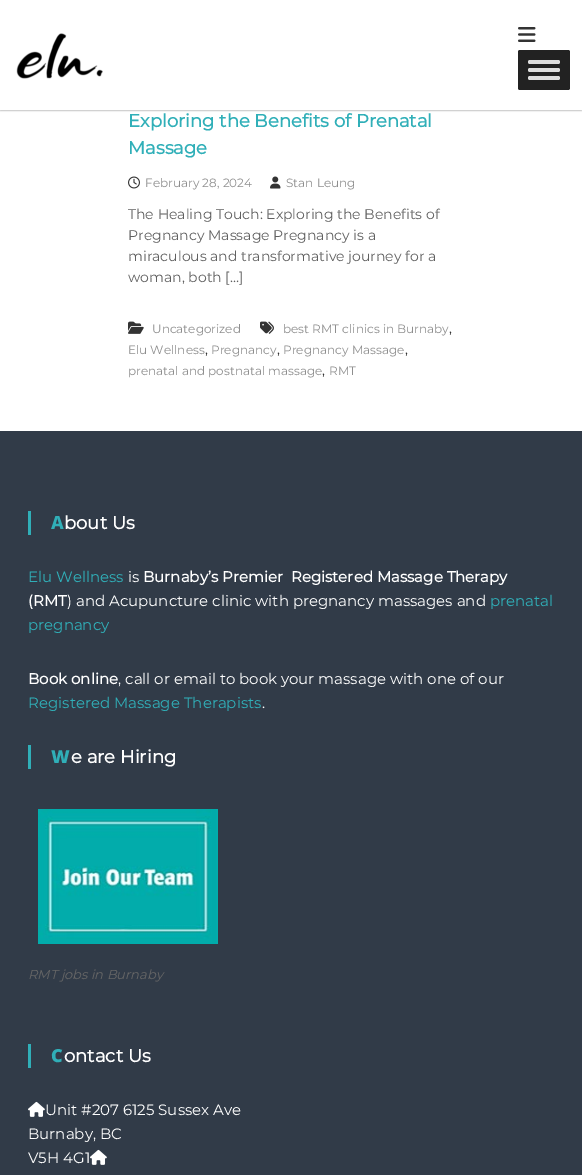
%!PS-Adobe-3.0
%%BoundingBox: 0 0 582 1175
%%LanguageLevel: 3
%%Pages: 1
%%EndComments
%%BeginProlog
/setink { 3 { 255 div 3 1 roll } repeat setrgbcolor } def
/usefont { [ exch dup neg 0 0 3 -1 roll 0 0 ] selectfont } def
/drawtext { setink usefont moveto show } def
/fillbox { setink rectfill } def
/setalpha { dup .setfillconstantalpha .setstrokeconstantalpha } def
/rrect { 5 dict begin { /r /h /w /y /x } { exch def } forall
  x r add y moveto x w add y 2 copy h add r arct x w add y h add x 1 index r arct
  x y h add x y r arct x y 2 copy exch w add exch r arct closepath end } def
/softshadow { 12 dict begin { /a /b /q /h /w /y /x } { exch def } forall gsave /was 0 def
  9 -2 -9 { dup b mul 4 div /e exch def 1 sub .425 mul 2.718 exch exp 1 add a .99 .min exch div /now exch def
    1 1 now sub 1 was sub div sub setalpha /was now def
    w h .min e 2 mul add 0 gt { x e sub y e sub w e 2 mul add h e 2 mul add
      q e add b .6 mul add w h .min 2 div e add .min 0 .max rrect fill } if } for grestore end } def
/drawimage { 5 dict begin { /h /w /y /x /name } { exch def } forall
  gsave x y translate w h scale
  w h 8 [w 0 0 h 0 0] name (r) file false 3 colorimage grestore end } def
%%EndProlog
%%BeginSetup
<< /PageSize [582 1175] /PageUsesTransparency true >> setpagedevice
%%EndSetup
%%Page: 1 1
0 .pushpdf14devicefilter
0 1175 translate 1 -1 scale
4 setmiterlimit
0 0 582 1175 255 255 255 fillbox
0 0 0 setink
0 1 582 110 0 0.5 0.2 softshadow
0 0 582 110 255 255 255 fillbox
(assets/img1.rgb) 16 33 87 46 drawimage
(assets/img2.rgb) 518 27 18 15 drawimage
34 34 34 setink
518 50 52 40 2 rrect fill
221 221 221 setink
528 60 32 4 2 rrect fill
528 68 32 4 2 rrect fill
528 76 32 4 2 rrect fill
(Exploring the Benefits of Prenatal) 128 127 /Montserrat-Bold 18 48 175 184 drawtext
(Massage) 128 154 /Montserrat-Bold 18 48 175 184 drawtext
(assets/img3.rgb) 128 176 12 13 drawimage
(February 28, 2024) 145 187 /Montserrat-Regular 12 142 142 142 drawtext
(assets/img4.rgb) 270 176 11 13 drawimage
(Stan Leung) 286 187 /Montserrat-Regular 12 142 142 142 drawtext
(The Healing Touch: Exploring the Benefits of) 128 219 /Montserrat-Regular 14 96 96 96 drawtext
(Pregnancy Massage Pregnancy is a) 128 240 /Montserrat-Regular 14 96 96 96 drawtext
(miraculous and transformative journey for a) 128 261 /Montserrat-Regular 14 96 96 96 drawtext
(woman, both […]) 128 282 /Montserrat-Regular 14 96 96 96 drawtext
(assets/img5.rgb) 260 321 14 13 drawimage
(best RMT clinics in Burnaby) 283 333 /Montserrat-Regular 12 142 142 142 drawtext
(,) 449 333 /Montserrat-Regular 14 51 51 51 drawtext
(Elu Wellness) 128 354 /Montserrat-Regular 12 142 142 142 drawtext
(,) 205 354 /Montserrat-Regular 14 51 51 51 drawtext
(Pregnancy) 211 354 /Montserrat-Regular 12 142 142 142 drawtext
(,) 277 354 /Montserrat-Regular 14 51 51 51 drawtext
(Pregnancy Massage) 283 354 /Montserrat-Regular 12 142 142 142 drawtext
(,) 405 354 /Montserrat-Regular 14 51 51 51 drawtext
(prenatal and postnatal massage) 128 375 /Montserrat-Regular 12 142 142 142 drawtext
(RMT) 329 375 /Montserrat-Regular 12 142 142 142 drawtext
(,) 322 375 /Montserrat-Regular 14 51 51 51 drawtext
(assets/img6.rgb) 128 321 16 13 drawimage
(Uncategorized) 152 333 /Montserrat-Regular 12 142 142 142 drawtext
0 431 582 744 49 59 72 fillbox
28 511 3 24 48 175 184 fillbox
(A) 51 529 /NotoSans-ExtraBold 18 48 175 184 drawtext
(bout Us) 64 529 /Montserrat-Bold 18 255 255 255 drawtext
(Elu Wellness) 28 582 /Montserrat-Regular 15 48 175 184 drawtext
(is) 128 582 /Montserrat-Regular 15 255 255 255 drawtext
(Burnaby’s Premier  Registered Massage Therapy) 143 582 /Montserrat-Bold 15 255 255 255 drawtext
(\(RMT) 28 606 /Montserrat-Bold 15 255 255 255 drawtext
(\) and Acupuncture clinic with pregnancy massages and) 67 606 /Montserrat-Regular 15 255 255 255 drawtext
(prenatal) 490 606 /Montserrat-Regular 15 48 175 184 drawtext
(pregnancy) 28 630 /Montserrat-Regular 15 48 175 184 drawtext
(Book online) 28 684 /Montserrat-Bold 15 255 255 255 drawtext
(, call or email to book your massage with one of our) 118 684 /Montserrat-Regular 15 255 255 255 drawtext
(Registered Massage Therapists) 28 708 /Montserrat-Regular 15 48 175 184 drawtext
(.) 262 708 /Montserrat-Regular 15 255 255 255 drawtext
28 745 3 24 48 175 184 fillbox
(W) 51 763 /NotoSans-Black 18 48 175 184 drawtext
(e are Hiring) 71 763 /Montserrat-Bold 18 255 255 255 drawtext
(assets/img7.rgb) 38 809 180 135 drawimage
(RMT jobs in Burnaby) 28 979 /Montserrat-Italic 13 102 102 102 drawtext
28 1044 3 24 48 175 184 fillbox
(C) 51 1062 /NotoSans-Black 18 48 175 184 drawtext
(ontact Us) 64 1062 /Montserrat-Bold 18 255 255 255 drawtext
(assets/img8.rgb) 28 1101 17 16 drawimage
(Unit #207 6125 Sussex Ave) 45 1115 /Montserrat-Regular 15 255 255 255 drawtext
(Burnaby, BC) 28 1139 /Montserrat-Regular 15 255 255 255 drawtext
(V5H 4G1) 28 1163 /Montserrat-Regular 15 255 255 255 drawtext
(assets/img8.rgb) 90 1149 17 16 drawimage
.poppdf14devicefilter showpage
%%EOF
